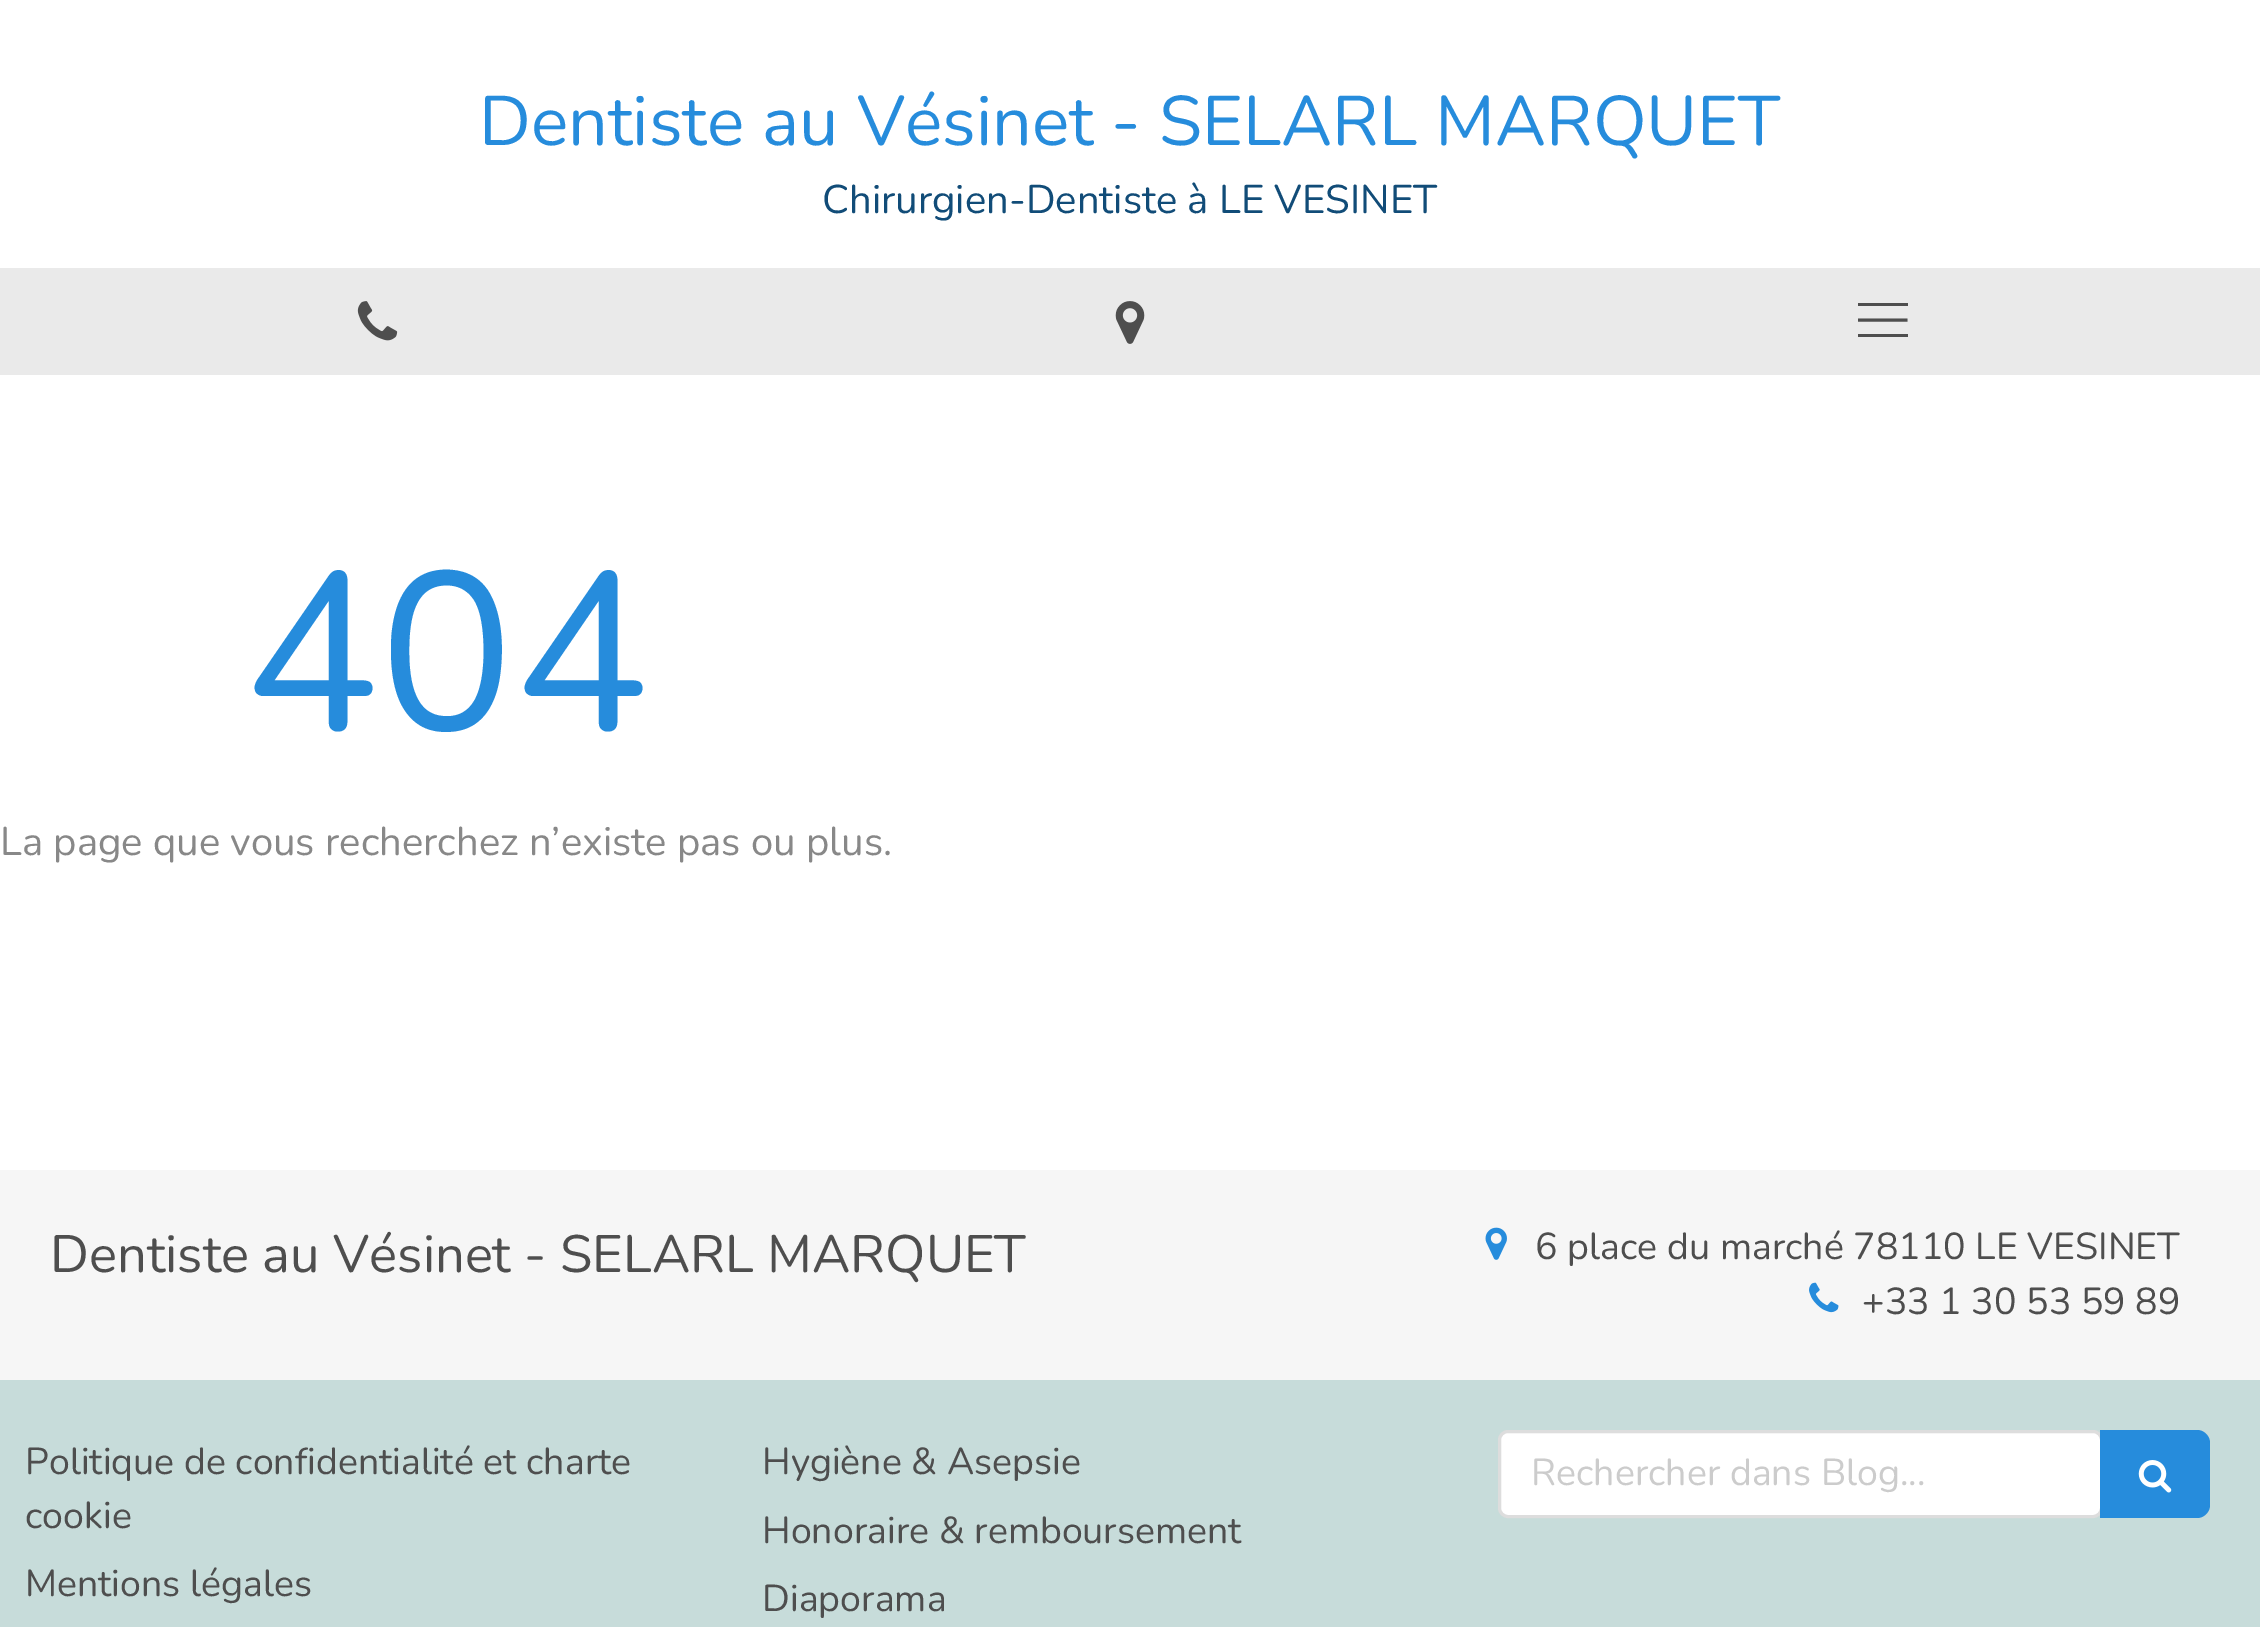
%!PS-Adobe-3.0
%%BoundingBox: 0 0 2260 1627
%%LanguageLevel: 3
%%Pages: 1
%%EndComments
%%BeginProlog
/setink { 3 { 255 div 3 1 roll } repeat setrgbcolor } def
/usefont { [ exch dup neg 0 0 3 -1 roll 0 0 ] selectfont } def
/drawtext { setink usefont moveto show } def
/fillbox { setink rectfill } def
/rrect { 5 dict begin { /r /h /w /y /x } { exch def } forall
  x r add y moveto x w add y 2 copy h add r arct x w add y h add x 1 index r arct
  x y h add x y r arct x y 2 copy exch w add exch r arct closepath end } def
/drawimage { 5 dict begin { /h /w /y /x /name } { exch def } forall
  gsave x y translate w h scale
  w h 8 [w 0 0 h 0 0] name (r) file false 3 colorimage grestore end } def
%%EndProlog
%%BeginSetup
<< /PageSize [2260 1627] >> setpagedevice
%%EndSetup
%%Page: 1 1
0 1627 translate 1 -1 scale
4 setmiterlimit
0 0 2260 1627 255 255 255 fillbox
(Dentiste au Vésinet - SELARL MARQUET) 479 145 /Nunito-Regular 70 38 140 220 drawtext
(Chirurgien-Dentiste à LE VESINET) 822 213 /Nunito-Regular 40 17 76 120 drawtext
0 268 2260 107 234 234 234 fillbox
(assets/img1.rgb) 357 301 41 40 drawimage
(assets/img2.rgb) 1115 301 30 43 drawimage
1858 303 50 3 78 78 78 fillbox
gsave
1858 295 50 50 rectclip
3 setlinewidth
1857.5 320 moveto 1907.5 320 lineto stroke
grestore
1858 334 50 3 78 78 78 fillbox
(404) 244 730 /Nunito-Regular 225 38 140 220 drawtext
(La page que vous recherchez n’existe pas ou plus.) 0 855 /Nunito-Regular 40 136 136 136 drawtext
0 1170 2260 210 246 246 246 fillbox
(Dentiste au Vésinet - SELARL MARQUET) 50 1272 /Nunito-Regular 52.5 78 78 78 drawtext
(assets/img3.rgb) 1485 1227 22 33 drawimage
(6 place du marché 78110 LE VESINET) 1535 1259 /Nunito-Regular 37.5 78 78 78 drawtext
(assets/img4.rgb) 1809 1282 30 31 drawimage
(+33 1 30 53 59 89) 1862 1314 /Nunito-Regular 37.5 78 78 78 drawtext
0 1380 2260 247 199 220 218 fillbox
(Politique de confidentialité et charte) 25 1474 /Nunito-Regular 37.5 78 78 78 drawtext
(cookie) 25 1528 /Nunito-Regular 37.5 78 78 78 drawtext
(Mentions légales) 25 1596 /Nunito-Regular 37.5 78 78 78 drawtext
(Hygiène & Asepsie) 762 1474 /Nunito-Regular 37.5 78 78 78 drawtext
(Honoraire & remboursement) 762 1543 /Nunito-Regular 37.5 78 78 78 drawtext
(Diaporama) 762 1611 /Nunito-Regular 37.5 78 78 78 drawtext
255 255 255 setink
1499.5 1431.5 602 85 8.5 rrect gsave fill grestore
221 221 221 setink
3 setlinewidth
stroke
(Rechercher dans Blog...) 1531 1485 /Nunito-Regular 37.5 204 204 204 drawtext
38 140 220 setink
2100 1430 moveto 2197 1430 lineto 2204 1430 2210 1436 2210 1443 curveto 2210 1505 lineto 2210 1512 2204 1518 2197 1518 curveto 2100 1518 lineto closepath fill
(assets/img5.rgb) 2138 1460 34 33 drawimage
showpage
%%EOF
